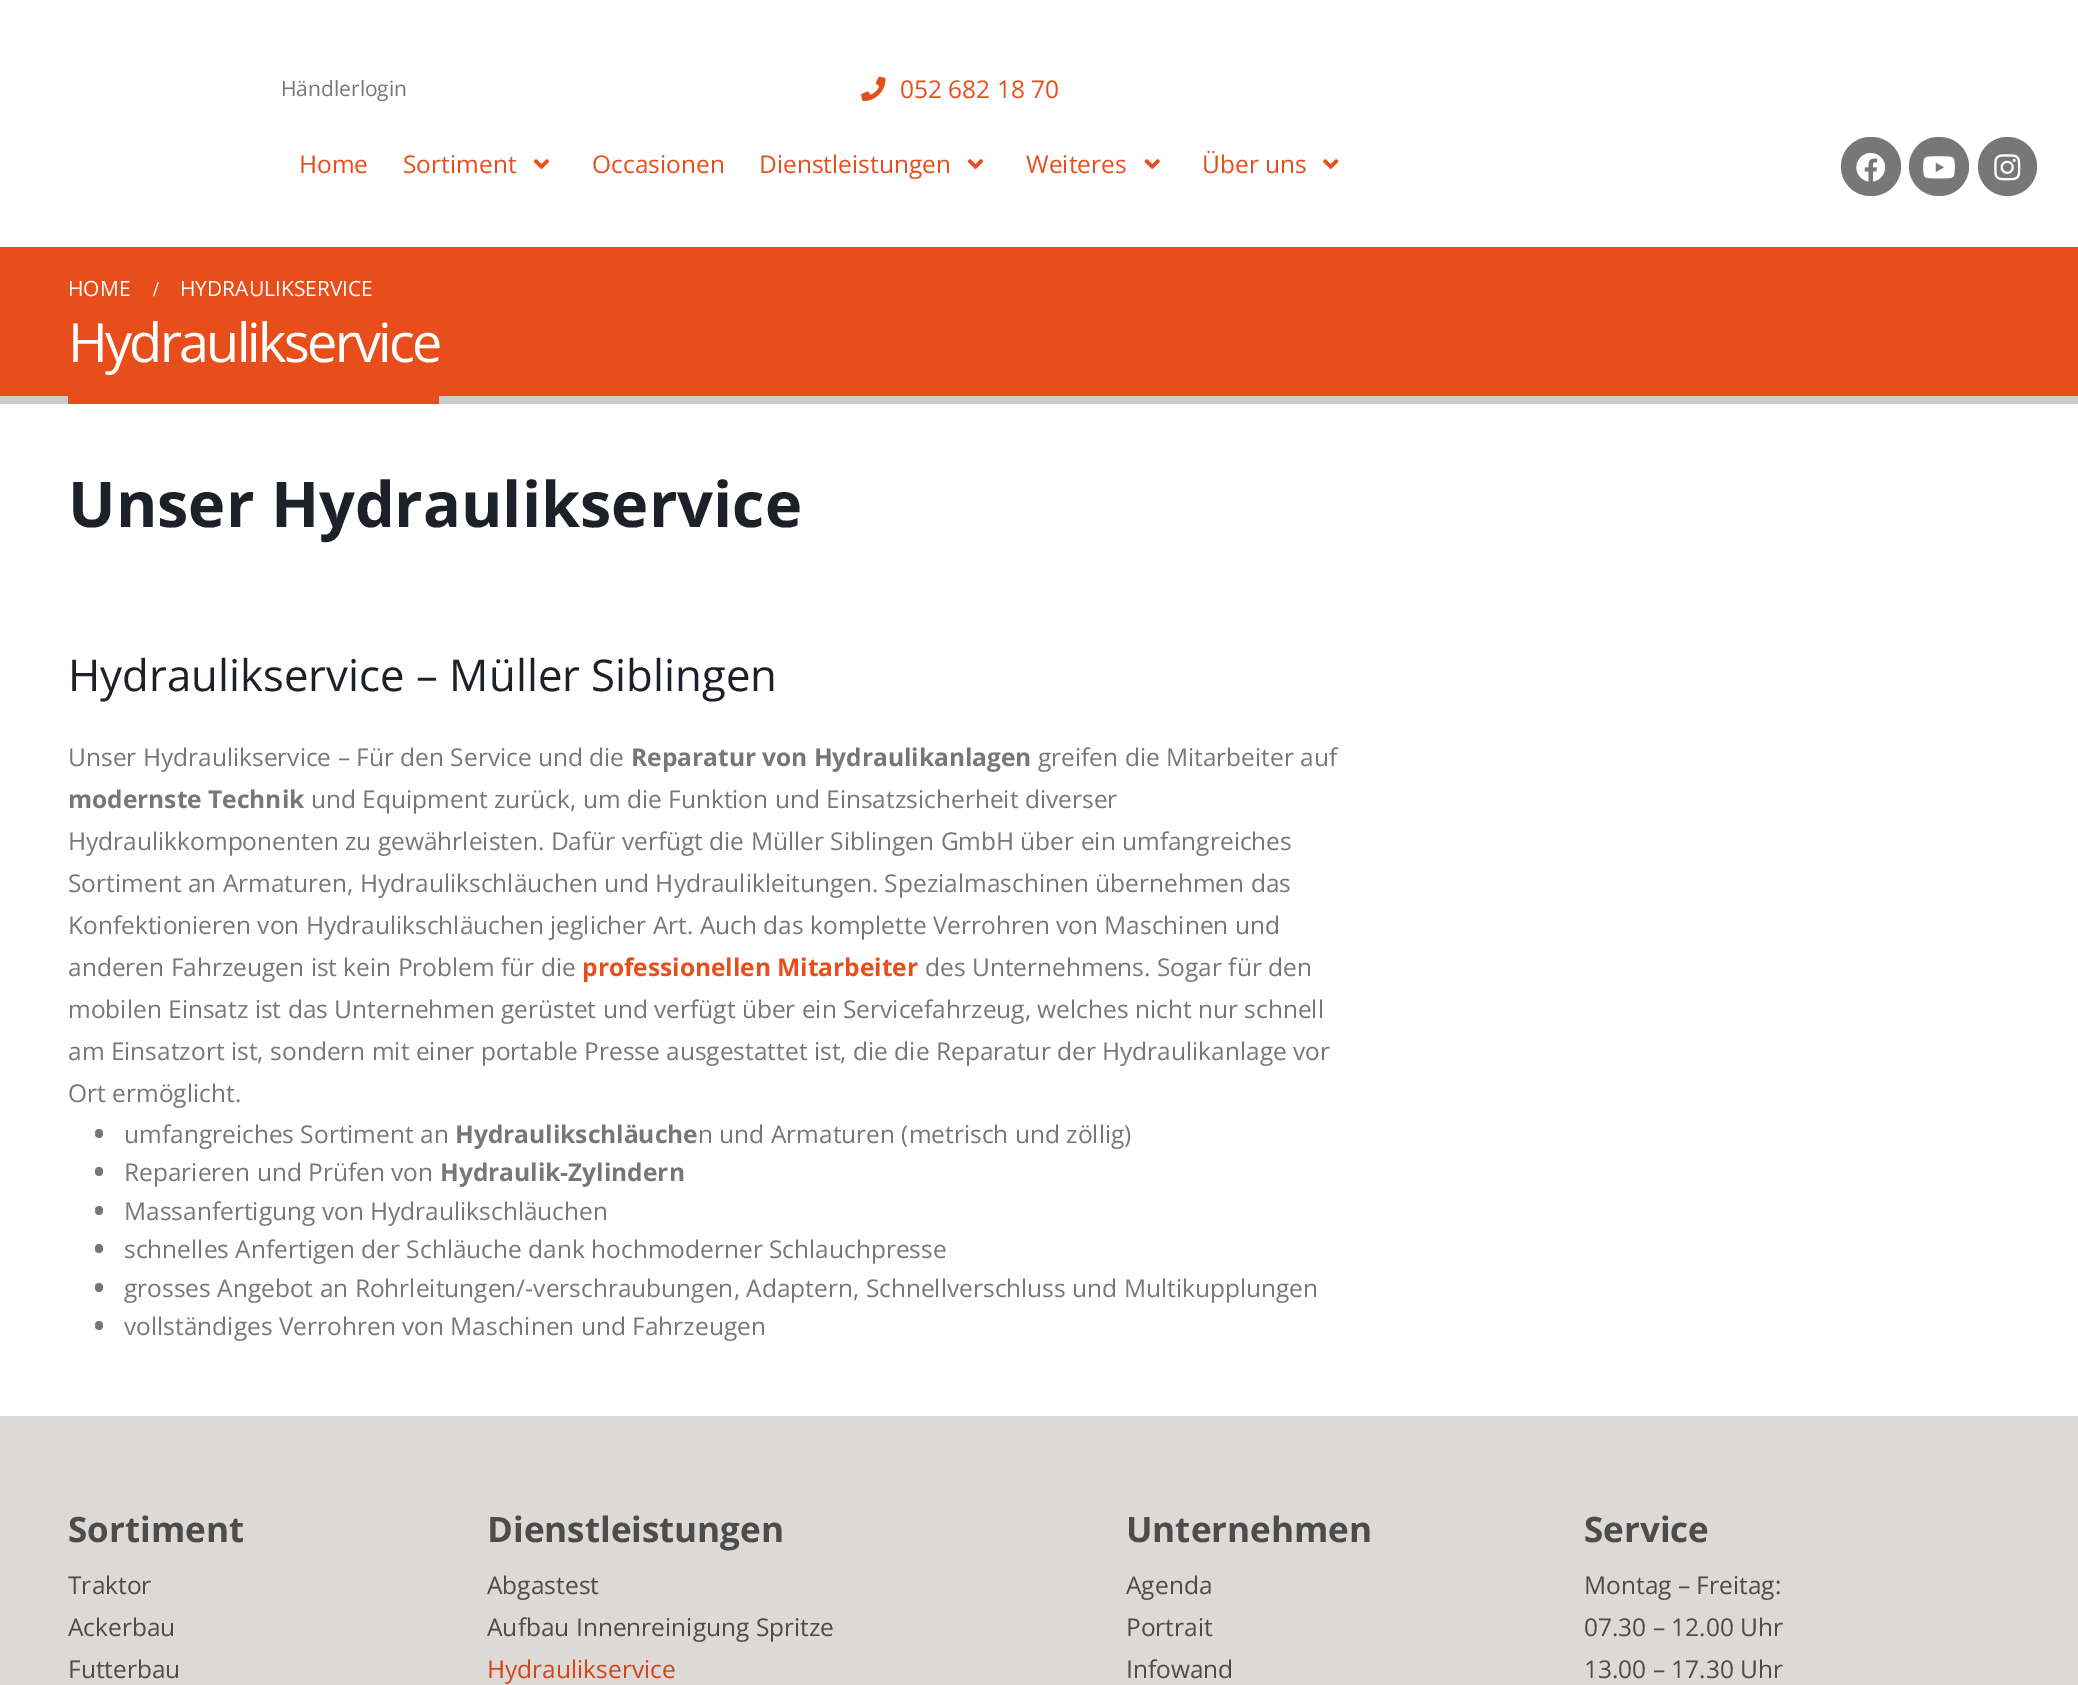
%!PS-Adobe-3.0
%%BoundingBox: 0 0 2078 1685
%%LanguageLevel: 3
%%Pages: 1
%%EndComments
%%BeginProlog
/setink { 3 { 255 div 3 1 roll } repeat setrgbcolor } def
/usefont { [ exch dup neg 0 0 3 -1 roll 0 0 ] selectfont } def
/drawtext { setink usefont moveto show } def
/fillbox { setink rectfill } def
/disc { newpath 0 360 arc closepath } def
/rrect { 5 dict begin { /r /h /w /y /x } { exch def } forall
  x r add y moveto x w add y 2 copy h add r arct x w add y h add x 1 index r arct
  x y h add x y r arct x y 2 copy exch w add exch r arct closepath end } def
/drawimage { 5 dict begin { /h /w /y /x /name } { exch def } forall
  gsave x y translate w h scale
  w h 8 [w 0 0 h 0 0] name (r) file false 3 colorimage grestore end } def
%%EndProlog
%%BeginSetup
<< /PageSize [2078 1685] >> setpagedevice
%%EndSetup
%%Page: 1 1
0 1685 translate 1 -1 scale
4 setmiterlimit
0 0 2078 1685 255 255 255 fillbox
(Händlerlogin) 281 96 /OpenSans-Regular 21 119 119 119 drawtext
(assets/img1.rgb) 861 76 25 26 drawimage
(052 682 18 70) 900 98 /OpenSans-Regular 24.5 232 78 27 drawtext
(Home) 299 173 /OpenSans-Regular 24.5 232 78 27 drawtext
(Sortiment) 403 173 /OpenSans-Regular 24.5 232 78 27 drawtext
(assets/img2.rgb) 533 159 17 10 drawimage
(Occasionen) 592 173 /OpenSans-Regular 24.5 232 78 27 drawtext
(Dienstleistungen) 759 173 /OpenSans-Regular 24.5 232 78 27 drawtext
(assets/img2.rgb) 967 159 17 10 drawimage
(Weiteres) 1026 173 /OpenSans-Regular 24.5 232 78 27 drawtext
(assets/img3.rgb) 1144 159 16 10 drawimage
(Über uns) 1202 173 /OpenSans-Regular 24.5 232 78 27 drawtext
(assets/img4.rgb) 1323 159 16 10 drawimage
119 119 119 setink
1841 137 60 59 29.5 rrect fill
(assets/img5.rgb) 1856 152 30 30 drawimage
1909 137 60 59 29.5 rrect fill
(assets/img6.rgb) 1923 156 32 23 drawimage
2007.5 166.5 29.5 disc fill
(assets/img7.rgb) 1994 154 27 27 drawimage
0 247 2078 149 232 78 27 fillbox
0 396 2078 8 204 204 204 fillbox
(HOME) 68 296 /OpenSans-Regular 21 255 255 255 drawtext
(/) 153 296 /LiberationSerif-Bold 21 255 255 255 drawtext
(HYDRAULIKSERVICE) 180 296 /OpenSans-Regular 21 255 255 255 drawtext
/OpenSans-Regular 54 usefont
68 362 moveto -2.75 0 (Hydraulikservice) ashow
68 396 371 8 232 78 27 fillbox
(Unser Hydraulikservice) 68 527 /OpenSans-Bold 63 29 33 39 drawtext
(Hydraulikservice – Müller Siblingen) 68 691 /OpenSans-Regular 43.75 29 33 39 drawtext
(Unser Hydraulikservice – Für den Service und die) 68 766 /OpenSans-Regular 24.5 119 119 119 drawtext
(Reparatur von Hydraulikanlagen) 631 766 /OpenSans-Bold 24.5 119 119 119 drawtext
(greifen die Mitarbeiter auf) 1038 766 /OpenSans-Regular 24.5 119 119 119 drawtext
(modernste Technik) 68 808 /OpenSans-Bold 24.5 119 119 119 drawtext
(und Equipment zurück, um die Funktion und Einsatzsicherheit diverser) 311 808 /OpenSans-Regular 24.5 119 119 119 drawtext
(Hydraulikkomponenten zu gewährleisten. Dafür verfügt die Müller Siblingen GmbH über ein umfangreiches) 68 850 /OpenSans-Regular 24.5 119 119 119 drawtext
(Sortiment an Armaturen, Hydraulikschläuchen und Hydraulikleitungen. Spezialmaschinen übernehmen das) 68 892 /OpenSans-Regular 24.5 119 119 119 drawtext
(Konfektionieren von Hydraulikschläuchen jeglicher Art. Auch das komplette Verrohren von Maschinen und) 68 934 /OpenSans-Regular 24.5 119 119 119 drawtext
(anderen Fahrzeugen ist kein Problem für die) 68 976 /OpenSans-Regular 24.5 119 119 119 drawtext
(professionellen Mitarbeiter) 582 976 /OpenSans-Bold 24.5 232 78 27 drawtext
(des Unternehmens. Sogar für den) 925 976 /OpenSans-Regular 24.5 119 119 119 drawtext
(mobilen Einsatz ist das Unternehmen gerüstet und verfügt über ein Servicefahrzeug, welches nicht nur schnell) 68 1018 /OpenSans-Regular 24.5 119 119 119 drawtext
(am Einsatzort ist, sondern mit einer portable Presse ausgestattet ist, die die Reparatur der Hydraulikanlage vor) 68 1060 /OpenSans-Regular 24.5 119 119 119 drawtext
(Ort ermöglicht.) 68 1102 /OpenSans-Regular 24.5 119 119 119 drawtext
95 1129 8 9 4 rrect fill
(umfangreiches Sortiment an) 124 1143 /OpenSans-Regular 24.5 119 119 119 drawtext
(Hydraulikschläuche) 455 1143 /OpenSans-Bold 24.5 119 119 119 drawtext
(n und Armaturen \(metrisch und zöllig\)) 698 1143 /OpenSans-Regular 24.5 119 119 119 drawtext
95 1167 8 9 4 rrect fill
(Reparieren und Prüfen von) 124 1181 /OpenSans-Regular 24.5 119 119 119 drawtext
(Hydraulik-Zylindern) 440 1181 /OpenSans-Bold 24.5 119 119 119 drawtext
95 1206 8 9 4 rrect fill
(Massanfertigung von Hydraulikschläuchen) 124 1220 /OpenSans-Regular 24.5 119 119 119 drawtext
95 1244 8 9 4 rrect fill
(schnelles Anfertigen der Schläuche dank hochmoderner Schlauchpresse) 124 1258 /OpenSans-Regular 24.5 119 119 119 drawtext
95 1283 8 9 4 rrect fill
(grosses Angebot an Rohrleitungen/-verschraubungen, Adaptern, Schnellverschluss und Multikupplungen) 124 1297 /OpenSans-Regular 24.5 119 119 119 drawtext
95 1321 8 9 4 rrect fill
(vollständiges Verrohren von Maschinen und Fahrzeugen) 124 1335 /OpenSans-Regular 24.5 119 119 119 drawtext
0 1416 2078 269 220 217 215 fillbox
(Sortiment) 68 1542 /OpenSans-Bold 35 76 76 76 drawtext
(Traktor) 68 1594 /OpenSans-Regular 24.5 76 76 76 drawtext
(Ackerbau) 68 1636 /OpenSans-Regular 24.5 76 76 76 drawtext
(Futterbau) 68 1678 /OpenSans-Regular 24.5 76 76 76 drawtext
(Dienstleistungen) 487 1542 /OpenSans-Bold 35 76 76 76 drawtext
(Abgastest) 487 1594 /OpenSans-Regular 24.5 76 76 76 drawtext
(Aufbau Innenreinigung Spritze) 487 1636 /OpenSans-Regular 24.5 76 76 76 drawtext
(Hydraulikservice) 487 1678 /OpenSans-Regular 24.5 212 69 21 drawtext
(Unternehmen) 1126 1542 /OpenSans-Bold 35 76 76 76 drawtext
(Agenda) 1126 1594 /OpenSans-Regular 24.5 76 76 76 drawtext
(Portrait) 1126 1636 /OpenSans-Regular 24.5 76 76 76 drawtext
(Infowand) 1126 1678 /OpenSans-Regular 24.5 76 76 76 drawtext
(Service) 1584 1542 /OpenSans-Bold 35 76 76 76 drawtext
(Montag – Freitag:) 1584 1594 /OpenSans-Regular 24.5 76 76 76 drawtext
(07.30 – 12.00 Uhr) 1584 1636 /OpenSans-Regular 24.5 76 76 76 drawtext
(13.00 – 17.30 Uhr) 1584 1678 /OpenSans-Regular 24.5 76 76 76 drawtext
showpage
%%EOF
